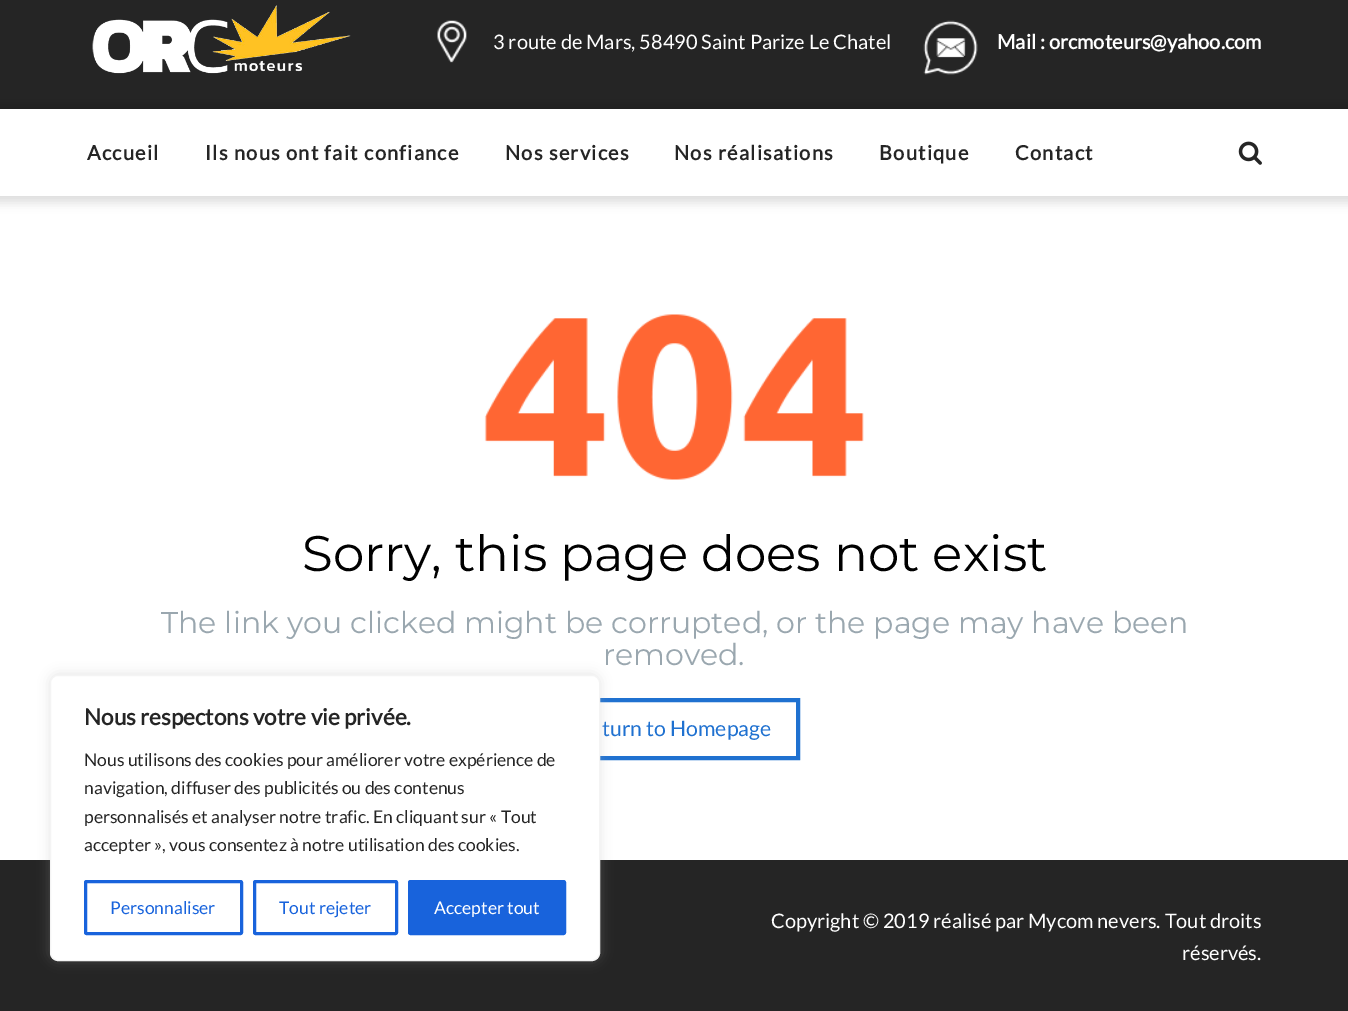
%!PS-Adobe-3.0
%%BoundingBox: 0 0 1348 1011
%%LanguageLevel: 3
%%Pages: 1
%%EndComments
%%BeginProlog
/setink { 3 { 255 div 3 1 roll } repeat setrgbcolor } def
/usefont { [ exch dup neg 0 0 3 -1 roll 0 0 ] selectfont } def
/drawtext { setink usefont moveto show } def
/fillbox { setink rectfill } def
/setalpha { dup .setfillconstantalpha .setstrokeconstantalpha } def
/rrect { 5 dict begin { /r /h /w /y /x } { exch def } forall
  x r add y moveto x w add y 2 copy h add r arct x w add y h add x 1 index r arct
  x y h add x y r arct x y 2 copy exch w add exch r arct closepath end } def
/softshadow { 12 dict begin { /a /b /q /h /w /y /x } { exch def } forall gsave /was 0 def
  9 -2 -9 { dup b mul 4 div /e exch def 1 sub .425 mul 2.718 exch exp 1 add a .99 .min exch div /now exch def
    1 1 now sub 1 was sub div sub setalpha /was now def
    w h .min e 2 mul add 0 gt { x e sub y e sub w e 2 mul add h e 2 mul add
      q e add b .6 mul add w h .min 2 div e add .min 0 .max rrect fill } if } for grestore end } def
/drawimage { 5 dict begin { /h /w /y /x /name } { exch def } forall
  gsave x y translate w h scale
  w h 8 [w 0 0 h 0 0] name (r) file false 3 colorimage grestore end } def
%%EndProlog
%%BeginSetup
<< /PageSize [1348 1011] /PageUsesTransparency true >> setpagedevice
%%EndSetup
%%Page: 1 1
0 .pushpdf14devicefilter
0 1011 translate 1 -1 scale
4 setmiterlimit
0 0 1348 1011 255 255 255 fillbox
0 0 1348 109 37 37 37 fillbox
(assets/img1.rgb) 92 5 259 69 drawimage
(assets/img2.rgb) 437 20 30 43 drawimage
(3 route de Mars, 58490 Saint Parize Le Chatel) 493 49 /Lato-Regular 20 255 255 255 drawtext
(assets/img3.rgb) 923 20 55 55 drawimage
(Mail : orcmoteurs@yahoo.com) 997 49 /Lato-Bold 20 255 255 255 drawtext
0 0 0 setink
-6 103 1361 100 0 5 0.12 softshadow
0 109 1348 87 255 255 255 fillbox
37 37 37 setink
87 160 moveto 1.25 0 (Accueil) ashow
205 160 moveto 1.25 0 (Ils nous ont fait confiance) ashow
505 160 moveto 1.25 0 (Nos services) ashow
674 160 moveto 1.25 0 (Nos réalisations) ashow
879 160 moveto 1.25 0 (Boutique) ashow
1015 160 moveto 1.25 0 (Contact) ashow
(assets/img4.rgb) 1238 141 24 24 drawimage
(assets/img5.rgb) 484 314 380 166 drawimage
(Sorry, this page does not exist) 302 571 /Montserrat-Thin 50 0 0 0 drawtext
(The link you clicked might be corrupted, or the page may have been) 161 633 /Montserrat-Thin 30 154 167 175 drawtext
(removed.) 603 665 /Montserrat-Thin 30 154 167 175 drawtext
31 113 208 setink
4 setlinewidth
551 700 247 58 rectstroke
(turn to Homepage) 602 736 /Lato-Regular 21.25 31 113 208 drawtext
0 860 1348 151 37 37 37 fillbox
(Copyright © 2019 réalisé par Mycom nevers. Tout droits) 771 928 /Lato-Regular 20 255 255 255 drawtext
(réservés.) 1182 960 /Lato-Regular 20 255 255 255 drawtext
172 171 171 setink
50 674 550 286 8 6 0.3 softshadow
255 255 255 setink
50.5 675.5 549 285 7.5 rrect gsave fill grestore
244 244 244 setink
1 setlinewidth
stroke
(Nous respectons votre vie privée.) 84 725 /Lato-Bold 22.5 37 37 37 drawtext
(Nous utilisons des cookies pour améliorer votre expérience de) 84 766 /Lato-Regular 17.5 37 37 37 drawtext
(navigation, diffuser des publicités ou des contenus) 84 794 /Lato-Regular 17.5 37 37 37 drawtext
(personnalisés et analyser notre trafic. En cliquant sur « Tout) 84 823 /Lato-Regular 17.5 37 37 37 drawtext
(accepter », vous consentez à notre utilisation des cookies.) 84 851 /Lato-Regular 17.5 37 37 37 drawtext
24 99 220 setink
3 setlinewidth
85.5 881.5 156 52 1 rrect stroke
(Personnaliser) 110 914 /Lato-Regular 17.5 24 99 220 drawtext
254.5 881.5 142 52 1 rrect stroke
(Tout rejeter) 279 914 /Lato-Regular 17.5 24 99 220 drawtext
409.5 881.5 155 52 1 rrect gsave fill grestore
stroke
(Accepter tout) 434 914 /Lato-Regular 17.5 255 255 255 drawtext
.poppdf14devicefilter showpage
%%EOF
